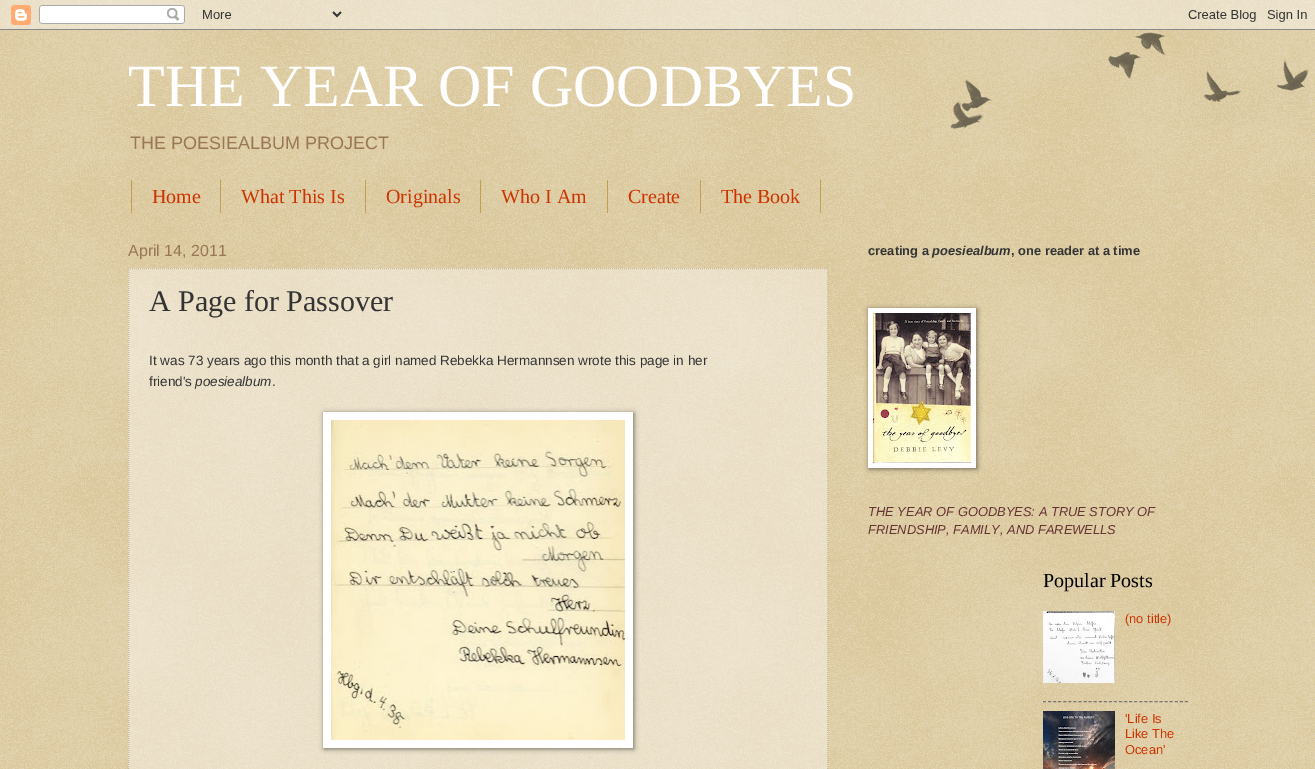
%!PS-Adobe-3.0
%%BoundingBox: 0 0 1315 769
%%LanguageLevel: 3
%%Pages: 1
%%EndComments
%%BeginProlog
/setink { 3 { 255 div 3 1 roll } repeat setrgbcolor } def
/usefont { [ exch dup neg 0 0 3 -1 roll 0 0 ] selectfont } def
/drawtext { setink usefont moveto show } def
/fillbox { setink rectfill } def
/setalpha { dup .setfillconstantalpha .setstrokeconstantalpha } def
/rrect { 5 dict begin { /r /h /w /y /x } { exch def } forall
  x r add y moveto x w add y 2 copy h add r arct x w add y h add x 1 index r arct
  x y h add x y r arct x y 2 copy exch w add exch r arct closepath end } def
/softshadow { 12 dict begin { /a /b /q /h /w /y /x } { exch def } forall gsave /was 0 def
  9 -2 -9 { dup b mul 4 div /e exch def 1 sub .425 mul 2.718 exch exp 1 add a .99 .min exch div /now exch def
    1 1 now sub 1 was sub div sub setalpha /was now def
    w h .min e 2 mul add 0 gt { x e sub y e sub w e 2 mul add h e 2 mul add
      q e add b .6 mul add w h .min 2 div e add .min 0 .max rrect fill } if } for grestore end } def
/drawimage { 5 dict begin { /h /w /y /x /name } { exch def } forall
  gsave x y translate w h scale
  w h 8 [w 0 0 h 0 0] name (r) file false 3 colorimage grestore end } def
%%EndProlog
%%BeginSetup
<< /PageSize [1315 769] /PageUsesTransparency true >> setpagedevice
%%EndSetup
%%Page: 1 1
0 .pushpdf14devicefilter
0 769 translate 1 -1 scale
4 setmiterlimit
0 0 1315 769 192 161 84 fillbox
(assets/img1.rgb) 0 0 1315 769 drawimage
(assets/img2.rgb) 0 0 1315 30 drawimage
(assets/img3.rgb) 950 32 359 97 drawimage
(THE YEAR OF GOODBYES) 128 106 /LiberationSerif-Regular 60 255 255 255 drawtext
(THE POESIEALBUM PROJECT) 130 149 /LiberationSans-Regular 18 153 119 85 drawtext
220 180 1 33 192 161 84 fillbox
131 180 1 33 192 161 84 fillbox
(Home) 152 203 /LiberationSerif-Regular 20 204 51 0 drawtext
365 180 1 33 192 161 84 fillbox
(What This Is) 241 203 /LiberationSerif-Regular 20 204 51 0 drawtext
480 180 1 33 192 161 84 fillbox
(Originals) 386 203 /LiberationSerif-Regular 20 204 51 0 drawtext
607 180 1 33 192 161 84 fillbox
(Who I Am) 501 203 /LiberationSerif-Regular 20 204 51 0 drawtext
700 180 1 33 192 161 84 fillbox
(Create) 628 203 /LiberationSerif-Regular 20 204 51 0 drawtext
820 180 1 33 192 161 84 fillbox
(The Book) 721 203 /LiberationSerif-Regular 20 204 51 0 drawtext
(April 14, 2011) 128 256 /LiberationSans-Regular 16 153 119 85 drawtext
0.4 setalpha
128 268 700 501 255 255 255 fillbox
1 setalpha
204 187 153 setink
[1 1] 0 setdash
128 268.5 moveto 828 268.5 lineto stroke
827.5 268 moveto 827.5 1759 lineto stroke
128.5 268 moveto 128.5 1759 lineto stroke
(A Page for Passover) 149 311 /LiberationSerif-Regular 30 51 51 51 drawtext
(It was 73 years ago this month that a girl named Rebekka Hermannsen wrote this page in her) 149 365 /LiberationSans-Regular 13.5 51 51 51 drawtext
(friend's) 149 386 /LiberationSans-Regular 13.5 51 51 51 drawtext
(poesiealbum) 195 386 /LiberationSans-Italic 13.5 51 51 51 drawtext
(.) 272 386 /LiberationSans-Regular 13.5 51 51 51 drawtext
0 0 0 setink
324 413 310 336 0 2.5 0.5 softshadow
323 412 310 336 255 255 255 fillbox
(assets/img4.rgb) 331 420 294 320 drawimage
(creating a) 868 255 /LiberationSans-Bold 12.9 51 51 51 drawtext
(poesiealbum) 932 255 /LiberationSans-BoldItalic 12.9 51 51 51 drawtext
(, one reader at a time) 1011 255 /LiberationSans-Bold 12.9 51 51 51 drawtext
0 0 0 setink
869 309 108 160 0 2.5 0.5 softshadow
868 308 108 160 255 255 255 fillbox
(assets/img5.rgb) 873 313 98 150 drawimage
(THE YEAR OF GOODBYES: A TRUE STORY OF) 868 516 /LiberationSans-Italic 12.9 102 51 51 drawtext
(FRIENDSHIP, FAMILY, AND FAREWELLS) 868 534 /LiberationSans-Italic 12.9 102 51 51 drawtext
(Popular Posts) 1043 587 /LiberationSerif-Regular 20 0 0 0 drawtext
(assets/img6.rgb) 1043 611 72 72 drawimage
(\(no title\)) 1125 623 /LiberationSans-Regular 12.9 204 51 0 drawtext
119 119 119 setink
[3 2.07] 0 setdash
1043 701.5 moveto 1188 701.5 lineto stroke
(assets/img7.rgb) 1043 711 72 58 drawimage
('Life Is) 1125 723 /LiberationSans-Regular 12.9 204 51 0 drawtext
(Like The) 1125 738 /LiberationSans-Regular 12.9 204 51 0 drawtext
(Ocean') 1125 754 /LiberationSans-Regular 12.9 204 51 0 drawtext
.poppdf14devicefilter showpage
%%EOF
